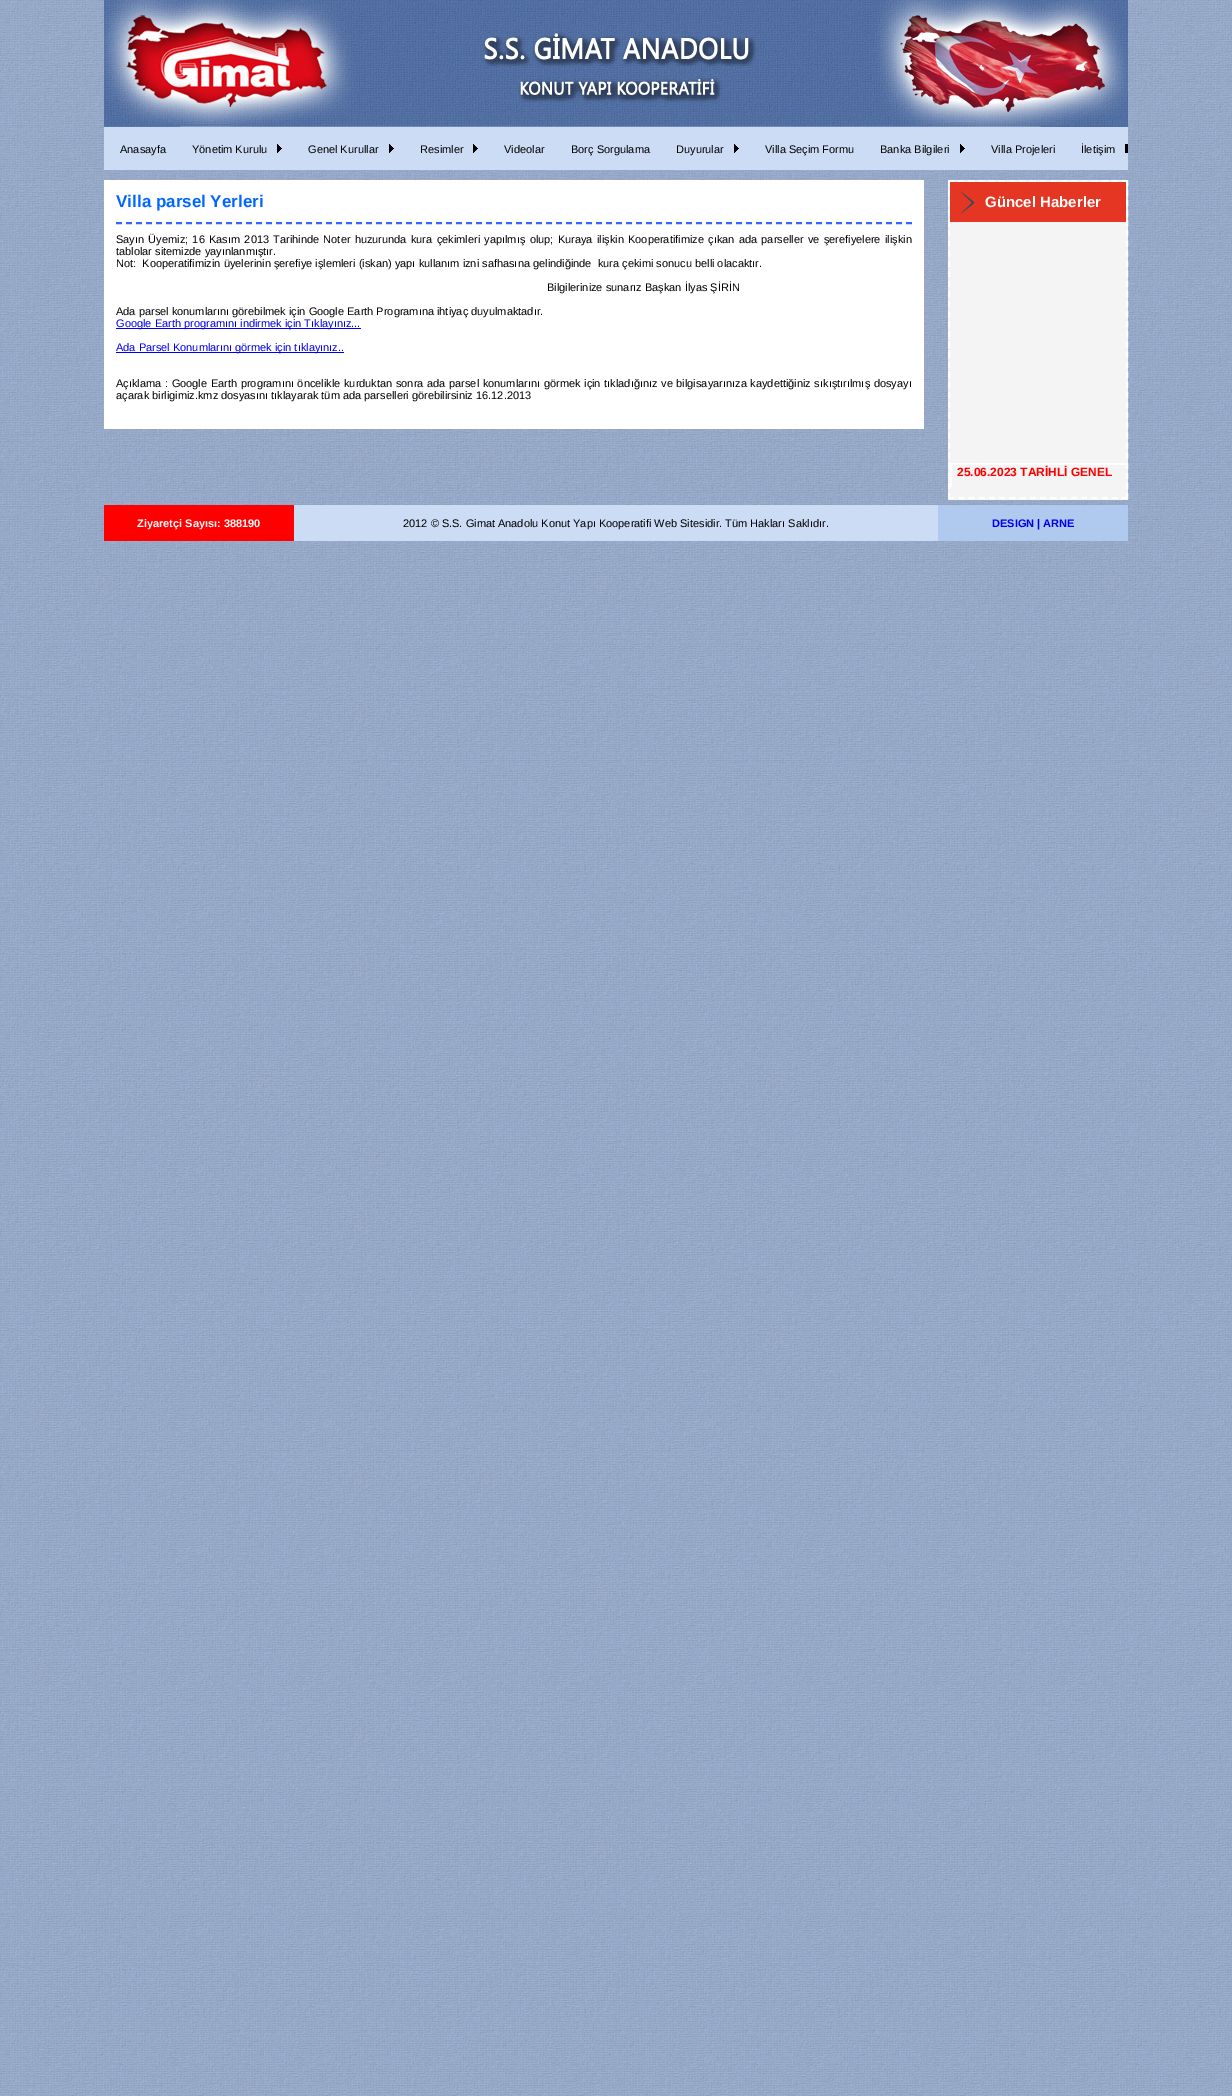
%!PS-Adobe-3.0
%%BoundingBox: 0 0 1232 2096
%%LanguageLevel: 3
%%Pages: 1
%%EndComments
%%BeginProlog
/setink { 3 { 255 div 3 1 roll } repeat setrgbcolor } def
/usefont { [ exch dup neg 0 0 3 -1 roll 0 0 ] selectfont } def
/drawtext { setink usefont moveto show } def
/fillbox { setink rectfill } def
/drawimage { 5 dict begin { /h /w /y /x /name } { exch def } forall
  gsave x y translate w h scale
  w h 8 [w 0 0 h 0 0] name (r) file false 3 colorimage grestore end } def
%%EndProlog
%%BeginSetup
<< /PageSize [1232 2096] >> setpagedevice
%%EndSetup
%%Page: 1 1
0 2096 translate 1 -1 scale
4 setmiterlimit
0 0 1232 2096 255 255 255 fillbox
(assets/img1.rgb) 0 0 1232 2096 drawimage
(assets/img2.rgb) 104 0 1024 127 drawimage
104 127 1024 43 204 220 245 fillbox
(Anasayfa) 120 153 /LiberationSans-Regular 11 0 0 0 drawtext
(Yönetim Kurulu) 192 153 /LiberationSans-Regular 11 0 0 0 drawtext
(assets/img3.rgb) 277 144 5 9 drawimage
(Genel Kurullar) 308 153 /LiberationSans-Regular 11 0 0 0 drawtext
(assets/img3.rgb) 389 144 5 9 drawimage
(Resimler) 420 153 /LiberationSans-Regular 11 0 0 0 drawtext
(assets/img3.rgb) 473 144 5 9 drawimage
(Videolar) 504 153 /LiberationSans-Regular 11 0 0 0 drawtext
(Borç Sorgulama) 571 153 /LiberationSans-Regular 11 0 0 0 drawtext
(Duyurular) 676 153 /LiberationSans-Regular 11 0 0 0 drawtext
(assets/img3.rgb) 734 144 5 9 drawimage
(Villa Seçim Formu) 765 153 /LiberationSans-Regular 11 0 0 0 drawtext
(Banka Bilgileri) 880 153 /LiberationSans-Regular 11 0 0 0 drawtext
(assets/img3.rgb) 960 144 5 9 drawimage
(Villa Projeleri) 991 153 /LiberationSans-Regular 11 0 0 0 drawtext
(İletişim) 1081 153 /LiberationSans-Regular 11 0 0 0 drawtext
1125 144 3 9 0 0 0 fillbox
104 180 820 249 255 255 255 fillbox
51 102 255 setink
2 setlinewidth
[6 4] 0 setdash
116 223 moveto 912 223 lineto stroke
(Villa parsel Yerleri) 116 207 /LiberationSans-Bold 17 0 102 255 drawtext
/LiberationSans-Regular 11 usefont
0 0 0 setink
116 243 moveto 1.25 0 32 (Sayın Üyemiz; 16 Kasım 2013 Tarihinde Noter huzurunda kura çekimleri yapılmış olup; Kuraya ilişkin Kooperatifimize çıkan ada parseller ve şerefiyelere ilişkin) widthshow
(tablolar sitemizde yayınlanmıştır.) 116 255 /LiberationSans-Regular 11 0 0 0 drawtext
(Not:  Kooperatifimizin üyelerinin şerefiye işlemleri \(iskan\) yapı kullanım izni safhasına gelindiğinde  kura çekimi sonucu belli olacaktır.) 116 267 /LiberationSans-Regular 11 0 0 0 drawtext
(Bilgilerinize sunarız Başkan İlyas ŞİRİN) 547 291 /LiberationSans-Regular 11 0 0 0 drawtext
(Ada parsel konumlarını görebilmek için Google Earth Programına ihtiyaç duyulmaktadır.) 116 315 /LiberationSans-Regular 11 0 0 0 drawtext
116 328 245 1 0 0 238 fillbox
(Google Earth programını indirmek için Tıklayınız...) 116 327 /LiberationSans-Regular 11 0 0 238 drawtext
116 352 228 1 0 0 238 fillbox
(Ada Parsel Konumlarını görmek için tıklayınız..) 116 351 /LiberationSans-Regular 11 0 0 238 drawtext
0 0 0 setink
116 387 moveto 0.6 0 32 (Açıklama : Google Earth programını öncelikle kurduktan sonra ada parsel konumlarını görmek için tıkladığınız ve bilgisayarınıza kaydettiğiniz sıkıştırılmış dosyayı) widthshow
(açarak birligimiz.kmz dosyasını tıklayarak tüm ada parselleri görebilirsiniz 16.12.2013) 116 399 /LiberationSans-Regular 11 0 0 0 drawtext
948 180 180 320 244 244 244 fillbox
255 255 255 setink
[6 4.24] 0 setdash
948 181 moveto 1128 181 lineto stroke
[6 4.1] 0 setdash
1127 180 moveto 1127 499 lineto stroke
[6 4.24] 0 setdash
948 498 moveto 1128 498 lineto stroke
[6 4.1] 0 setdash
949 180 moveto 949 499 lineto stroke
950 182 176 40 228 54 35 fillbox
(assets/img4.rgb) 960 191 14 23 drawimage
(Güncel Haberler) 985 207 /LiberationSans-Bold 15 255 255 255 drawtext
950 463 176 24 255 255 255 fillbox
952 465 174 22 244 244 244 fillbox
(25.06.2023 TARİHLİ GENEL) 957 476 /LiberationSans-Bold 12 255 0 0 drawtext
294 505 644 36 204 220 245 fillbox
104 505 190 36 255 0 0 fillbox
(Ziyaretçi Sayısı: 388190) 137 527 /LiberationSans-Bold 11 255 255 255 drawtext
(2012 © S.S. Gimat Anadolu Konut Yapı Kooperatifi Web Sitesidir. Tüm Hakları Saklıdır.) 403 527 /LiberationSans-Regular 11 0 0 0 drawtext
938 505 190 36 175 201 239 fillbox
(DESIGN | ARNE) 992 527 /LiberationSans-Bold 11 0 0 238 drawtext
showpage
%%EOF
